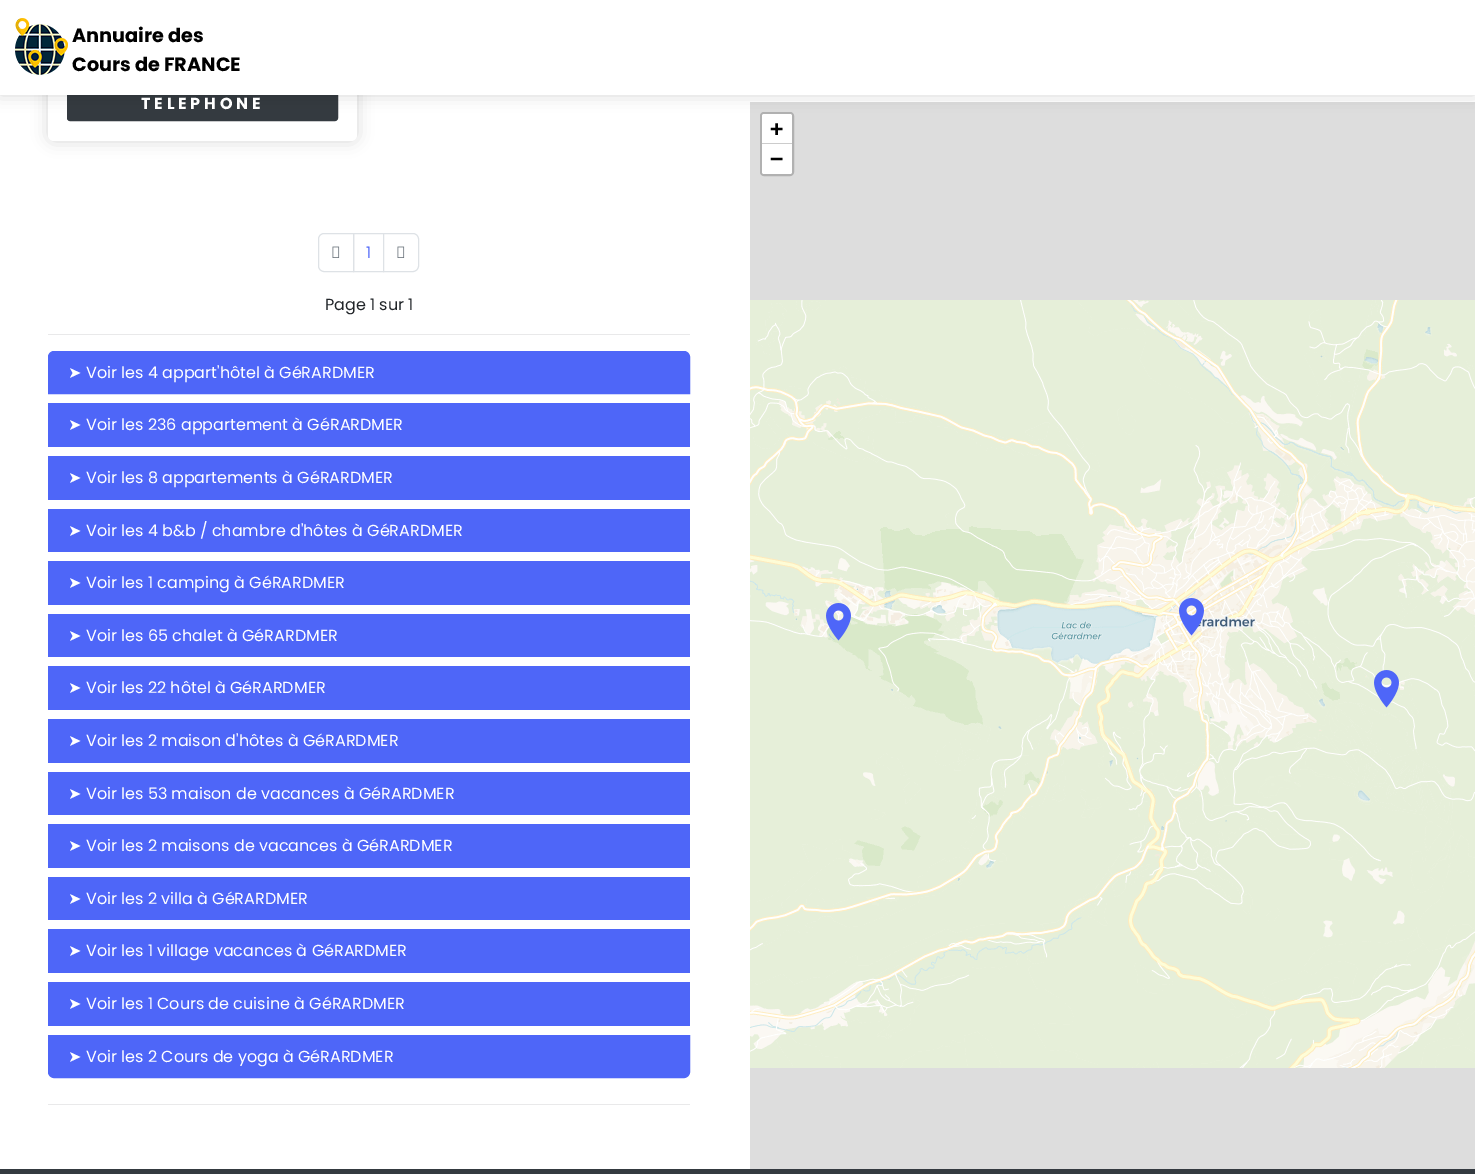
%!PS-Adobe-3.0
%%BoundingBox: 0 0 1475 1174
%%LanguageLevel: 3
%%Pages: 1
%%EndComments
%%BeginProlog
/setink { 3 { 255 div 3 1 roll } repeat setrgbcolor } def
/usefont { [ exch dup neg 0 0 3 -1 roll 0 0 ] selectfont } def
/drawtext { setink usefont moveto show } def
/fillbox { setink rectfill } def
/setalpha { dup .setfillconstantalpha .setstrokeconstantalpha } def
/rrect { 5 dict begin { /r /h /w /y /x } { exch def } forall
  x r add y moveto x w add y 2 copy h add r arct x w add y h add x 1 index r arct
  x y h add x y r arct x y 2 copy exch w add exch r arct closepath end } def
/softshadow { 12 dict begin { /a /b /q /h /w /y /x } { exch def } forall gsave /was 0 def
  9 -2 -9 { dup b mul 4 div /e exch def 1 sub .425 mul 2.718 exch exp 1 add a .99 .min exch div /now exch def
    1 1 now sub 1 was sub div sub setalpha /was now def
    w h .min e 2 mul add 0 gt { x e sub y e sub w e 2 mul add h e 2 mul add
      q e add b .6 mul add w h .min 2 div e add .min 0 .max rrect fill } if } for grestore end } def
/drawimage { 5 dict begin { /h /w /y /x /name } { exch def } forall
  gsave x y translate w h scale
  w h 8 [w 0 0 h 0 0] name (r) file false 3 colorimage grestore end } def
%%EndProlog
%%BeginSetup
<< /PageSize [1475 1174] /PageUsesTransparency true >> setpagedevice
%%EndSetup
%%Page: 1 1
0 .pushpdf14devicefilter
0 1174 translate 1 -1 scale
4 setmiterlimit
0 0 1475 1174 255 255 255 fillbox
0 0 0 setink
48 -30 309 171 6 8 0.15 softshadow
255 255 255 setink
48 -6 309 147 6 rrect fill
52 58 64 setink
67.5 60.5 270 60 2.5 rrect gsave fill grestore
stroke
750 102 725 1067 221 221 221 fillbox
177 177 177 setink
2 setlinewidth
761 113 32 62 3 rrect stroke
255 255 255 setink
764 114 moveto 790 114 lineto 791 114 792 115 792 116 curveto 792 144 lineto 762 144 lineto 762 116 lineto 762 115 763 114 764 114 curveto closepath fill
0 0 0 setink
0 0 1475 95 0 8 0.15 softshadow
0 0 1475 95 255 255 255 fillbox
(assets/img1.rgb) 15 18 53 57 drawimage
(Annuaire des) 72 42 /Poppins-Bold 19.25 0 0 0 drawtext
(Cours de FRANCE) 72 71 /Poppins-Bold 19.25 0 0 0 drawtext
/Poppins-Bold 16 usefont
255 255 255 setink
141 109 moveto 3.75 0 (TELEPHONE) ashow
222 226 230 setink
1 setlinewidth
324 233.5 moveto 353.5 233.5 lineto 353.5 271.5 lineto 324 271.5 lineto 321 271.5 318.5 269 318.5 266 curveto 318.5 239 lineto 318.5 236 321 233.5 324 233.5 curveto closepath stroke
(assets/img2.rgb) 332 246 8 12 drawimage
353.5 233.5 30 38 rectstroke
(1) 366 258 /Poppins-Regular 16 78 102 248 drawtext
255 255 255 setink
383.5 233.5 moveto 413 233.5 lineto 416 233.5 418.5 236 418.5 239 curveto 418.5 266 lineto 418.5 269 416 271.5 413 271.5 curveto 383.5 271.5 lineto closepath gsave fill grestore
222 226 230 setink
stroke
(assets/img2.rgb) 397 246 8 12 drawimage
(Page 1 sur 1) 325 310 /Poppins-Regular 16 33 37 41 drawtext
48 334 642 1 233 233 234 fillbox
78 102 248 setink
54 351.5 moveto 684 351.5 lineto 687 351.5 689.5 354 689.5 357 curveto 689.5 393.5 lineto 48.5 393.5 lineto 48.5 357 lineto 48.5 354 51 351.5 54 351.5 curveto closepath gsave fill grestore
stroke
(➤) 68 378 /DejaVuSans-Regular 16 255 255 255 drawtext
(Voir les 4 appart'hôtel à GéRARDMER) 86 378 /Poppins-Regular 16 255 255 255 drawtext
48 403 642 44 78 102 248 fillbox
(➤) 68 430 /DejaVuSans-Regular 16 255 255 255 drawtext
(Voir les 236 appartement à GéRARDMER) 86 430 /Poppins-Regular 16 255 255 255 drawtext
48 456 642 44 78 102 248 fillbox
(➤) 68 483 /DejaVuSans-Regular 16 255 255 255 drawtext
(Voir les 8 appartements à GéRARDMER) 86 483 /Poppins-Regular 16 255 255 255 drawtext
48 509 642 43 78 102 248 fillbox
(➤) 68 536 /DejaVuSans-Regular 16 255 255 255 drawtext
(Voir les 4 b&b / chambre d'hôtes à GéRARDMER) 86 536 /Poppins-Regular 16 255 255 255 drawtext
48 561 642 44 78 102 248 fillbox
(➤) 68 588 /DejaVuSans-Regular 16 255 255 255 drawtext
(Voir les 1 camping à GéRARDMER) 86 588 /Poppins-Regular 16 255 255 255 drawtext
48 614 642 43 78 102 248 fillbox
(➤) 68 641 /DejaVuSans-Regular 16 255 255 255 drawtext
(Voir les 65 chalet à GéRARDMER) 86 641 /Poppins-Regular 16 255 255 255 drawtext
48 666 642 44 78 102 248 fillbox
(➤) 68 693 /DejaVuSans-Regular 16 255 255 255 drawtext
(Voir les 22 hôtel à GéRARDMER) 86 693 /Poppins-Regular 16 255 255 255 drawtext
48 719 642 44 78 102 248 fillbox
(➤) 68 746 /DejaVuSans-Regular 16 255 255 255 drawtext
(Voir les 2 maison d'hôtes à GéRARDMER) 86 746 /Poppins-Regular 16 255 255 255 drawtext
48 772 642 43 78 102 248 fillbox
(➤) 68 799 /DejaVuSans-Regular 16 255 255 255 drawtext
(Voir les 53 maison de vacances à GéRARDMER) 86 799 /Poppins-Regular 16 255 255 255 drawtext
48 824 642 44 78 102 248 fillbox
(➤) 68 851 /DejaVuSans-Regular 16 255 255 255 drawtext
(Voir les 2 maisons de vacances à GéRARDMER) 86 851 /Poppins-Regular 16 255 255 255 drawtext
48 877 642 43 78 102 248 fillbox
(➤) 68 904 /DejaVuSans-Regular 16 255 255 255 drawtext
(Voir les 2 villa à GéRARDMER) 86 904 /Poppins-Regular 16 255 255 255 drawtext
48 929 642 44 78 102 248 fillbox
(➤) 68 956 /DejaVuSans-Regular 16 255 255 255 drawtext
(Voir les 1 village vacances à GéRARDMER) 86 956 /Poppins-Regular 16 255 255 255 drawtext
48 982 642 44 78 102 248 fillbox
(➤) 68 1009 /DejaVuSans-Regular 16 255 255 255 drawtext
(Voir les 1 Cours de cuisine à GéRARDMER) 86 1009 /Poppins-Regular 16 255 255 255 drawtext
78 102 248 setink
48.5 1035.5 moveto 689.5 1035.5 lineto 689.5 1072 lineto 689.5 1075 687 1077.5 684 1077.5 curveto 54 1077.5 lineto 51 1077.5 48.5 1075 48.5 1072 curveto closepath gsave fill grestore
stroke
(➤) 68 1062 /DejaVuSans-Regular 16 255 255 255 drawtext
(Voir les 2 Cours de yoga à GéRARDMER) 86 1062 /Poppins-Regular 16 255 255 255 drawtext
48 1104 642 1 233 233 234 fillbox
762 143 30 1 204 204 204 fillbox
(+) 770 136 /DejaVuSansMono-Bold 22 0 0 0 drawtext
255 255 255 setink
762 144 moveto 792 144 lineto 792 172 lineto 792 173 791 174 790 174 curveto 764 174 lineto 763 174 762 173 762 172 curveto closepath fill
(−) 770 166 /DejaVuSansMono-Bold 22 0 0 0 drawtext
(assets/img3.rgb) 750 300 84 256 drawimage
(assets/img4.rgb) 834 300 256 256 drawimage
(assets/img5.rgb) 1090 300 256 256 drawimage
(assets/img6.rgb) 1346 300 129 256 drawimage
(assets/img7.rgb) 750 556 84 256 drawimage
(assets/img8.rgb) 834 556 256 256 drawimage
(assets/img9.rgb) 1090 556 256 256 drawimage
(assets/img10.rgb) 1346 556 129 256 drawimage
(assets/img11.rgb) 750 812 84 256 drawimage
(assets/img12.rgb) 834 812 256 256 drawimage
(assets/img13.rgb) 1090 812 256 256 drawimage
(assets/img14.rgb) 1346 812 129 256 drawimage
(assets/img15.rgb) 826 603 25 38 drawimage
(assets/img16.rgb) 1179 598 25 38 drawimage
(assets/img17.rgb) 1374 670 25 38 drawimage
0 1169 1475 5 52 58 64 fillbox
.poppdf14devicefilter showpage
%%EOF
